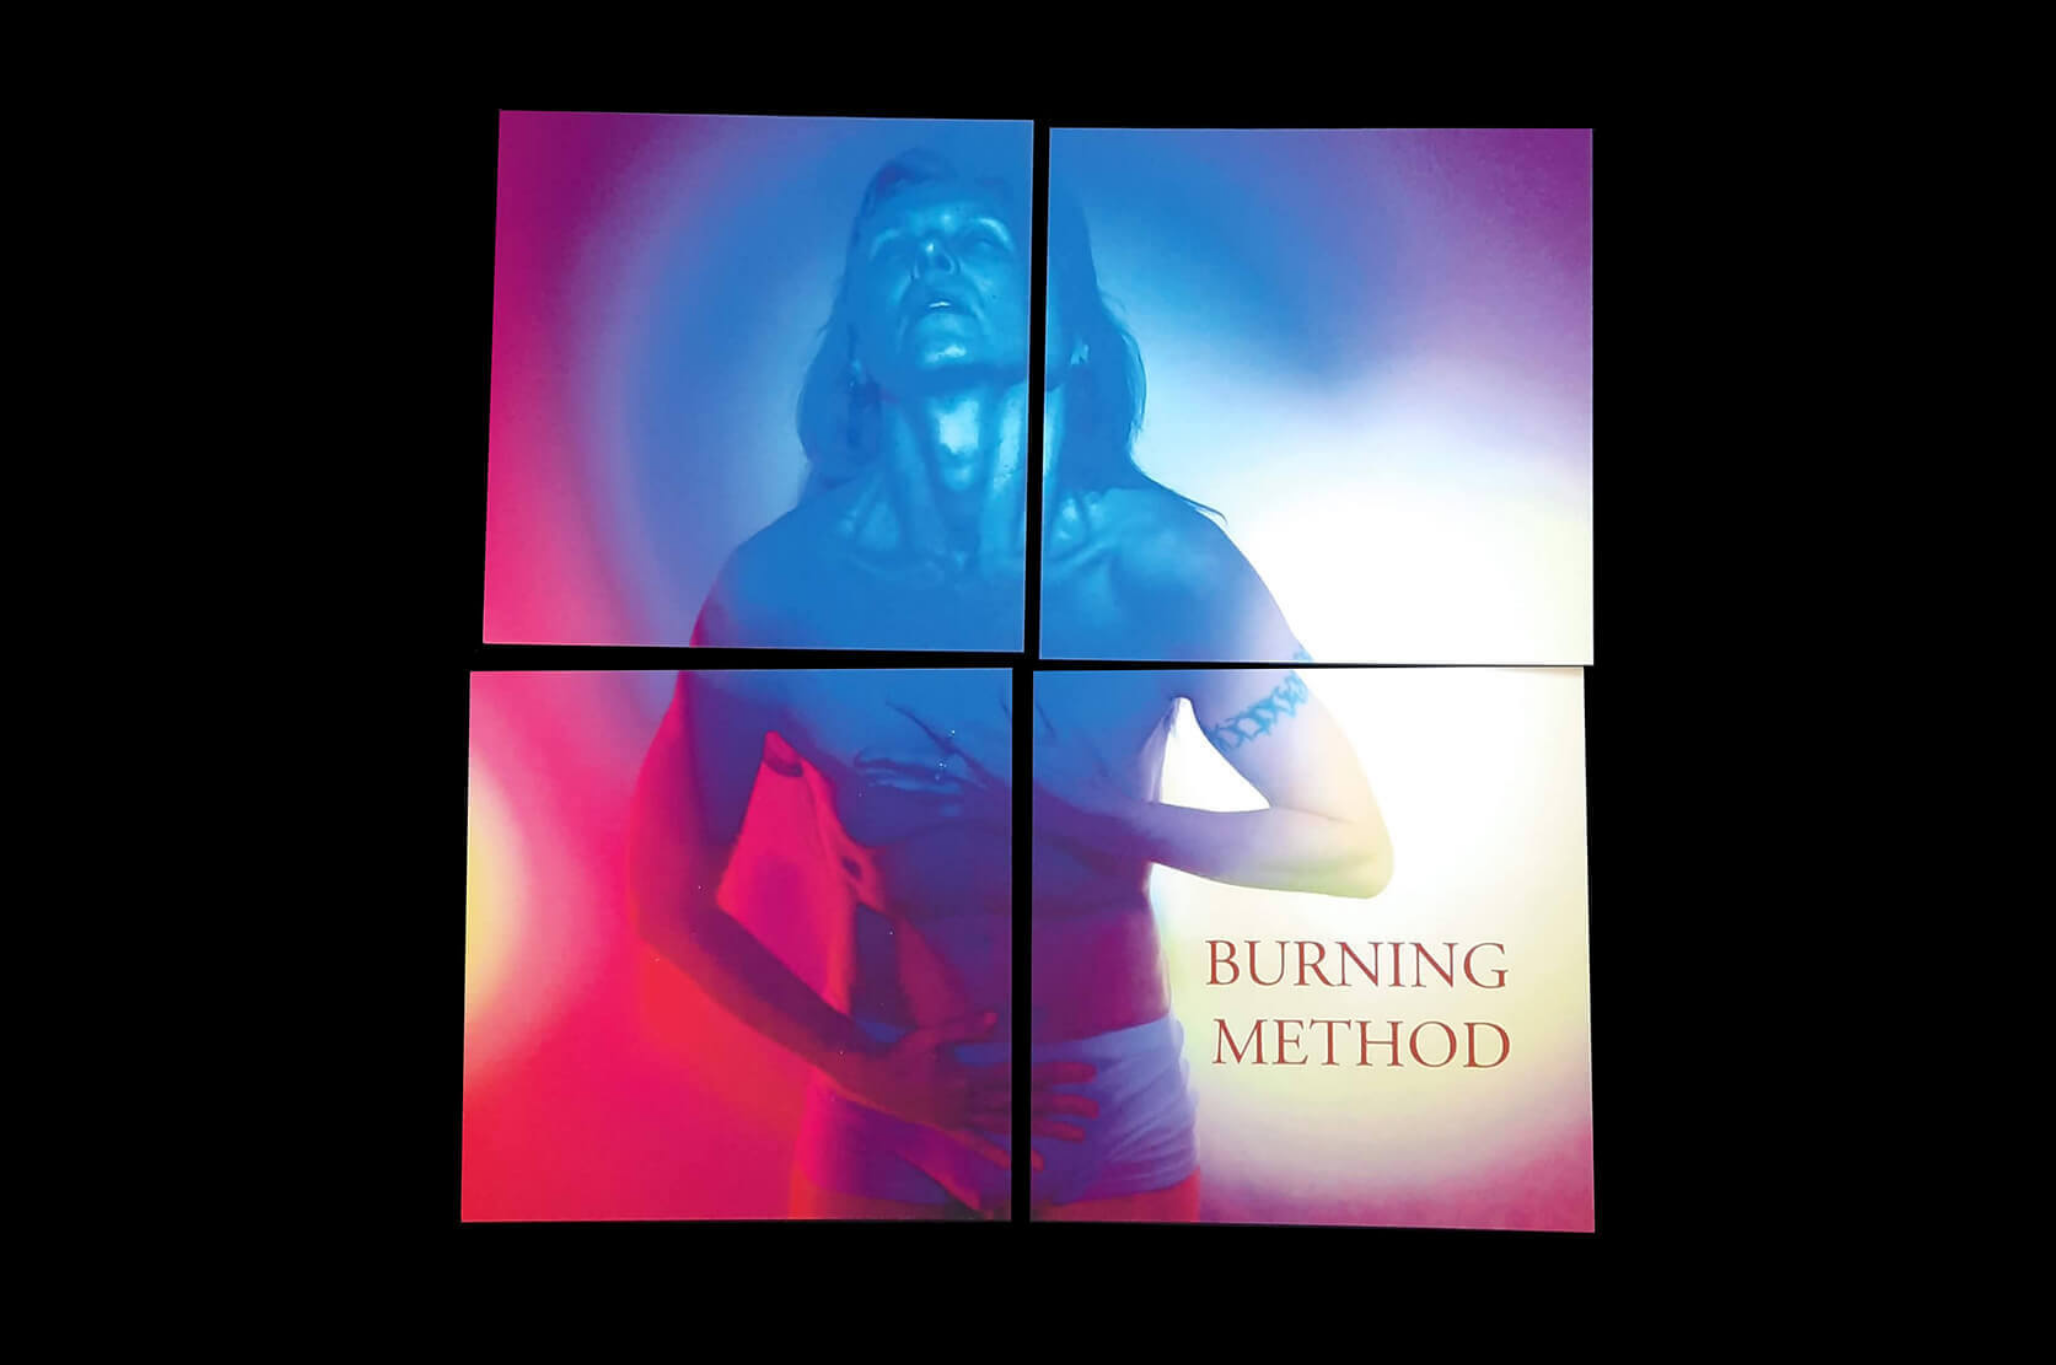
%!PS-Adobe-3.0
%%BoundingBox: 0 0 2056 1365
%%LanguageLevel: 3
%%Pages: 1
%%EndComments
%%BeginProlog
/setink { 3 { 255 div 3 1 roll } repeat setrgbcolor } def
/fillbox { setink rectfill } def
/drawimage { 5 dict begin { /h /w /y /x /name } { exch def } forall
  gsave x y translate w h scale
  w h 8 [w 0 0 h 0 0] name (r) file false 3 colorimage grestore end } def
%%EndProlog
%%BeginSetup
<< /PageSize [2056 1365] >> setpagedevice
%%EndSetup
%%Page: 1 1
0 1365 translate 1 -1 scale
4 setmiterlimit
0 0 2056 1365 0 0 0 fillbox
(assets/img1.rgb) 453 108 1150 1131 drawimage
showpage
%%EOF
